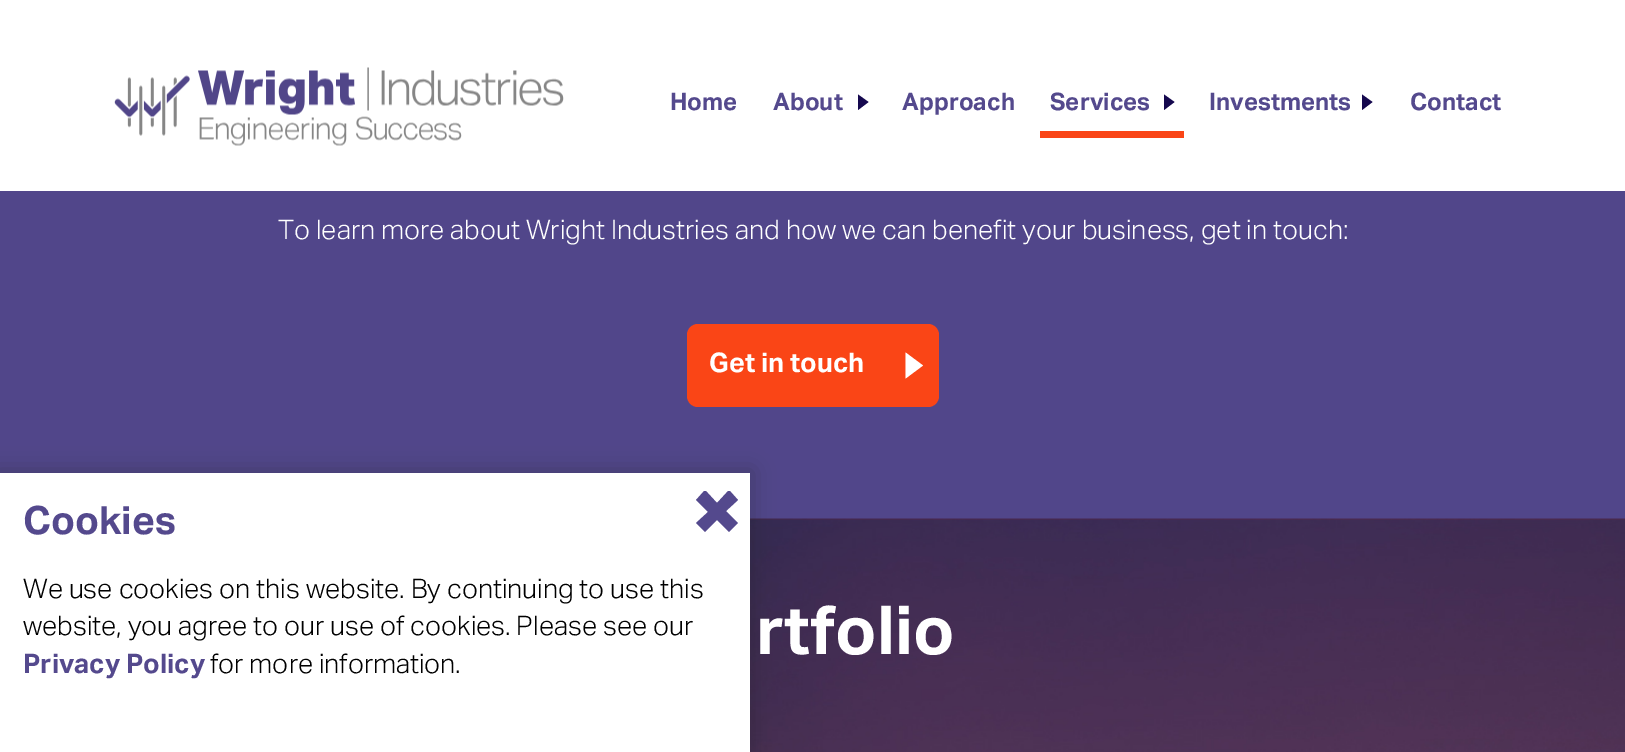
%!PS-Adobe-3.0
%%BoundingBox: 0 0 1625 752
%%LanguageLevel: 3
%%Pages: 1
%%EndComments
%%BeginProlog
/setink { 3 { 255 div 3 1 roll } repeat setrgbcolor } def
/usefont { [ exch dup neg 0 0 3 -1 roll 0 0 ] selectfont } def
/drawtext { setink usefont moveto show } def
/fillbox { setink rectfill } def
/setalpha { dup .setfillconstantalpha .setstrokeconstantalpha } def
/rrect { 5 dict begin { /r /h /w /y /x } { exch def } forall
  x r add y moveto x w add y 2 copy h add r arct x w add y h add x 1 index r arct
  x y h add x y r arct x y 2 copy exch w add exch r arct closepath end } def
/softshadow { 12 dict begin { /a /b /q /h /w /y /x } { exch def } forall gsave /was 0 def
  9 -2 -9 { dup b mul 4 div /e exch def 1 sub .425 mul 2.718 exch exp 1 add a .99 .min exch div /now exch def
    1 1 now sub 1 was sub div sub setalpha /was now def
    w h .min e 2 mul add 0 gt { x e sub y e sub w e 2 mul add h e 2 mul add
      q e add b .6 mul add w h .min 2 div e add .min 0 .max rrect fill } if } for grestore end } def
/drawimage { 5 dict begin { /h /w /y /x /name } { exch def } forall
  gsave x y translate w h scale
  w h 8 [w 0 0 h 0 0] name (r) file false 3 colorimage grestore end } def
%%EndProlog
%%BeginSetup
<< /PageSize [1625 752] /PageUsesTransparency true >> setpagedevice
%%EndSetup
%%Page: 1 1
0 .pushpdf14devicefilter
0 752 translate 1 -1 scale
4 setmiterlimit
0 0 1625 752 81 70 138 fillbox
0 0 1625 191 255 255 255 fillbox
(assets/img1.rgb) 114 67 450 79 drawimage
(Home) 670 110 /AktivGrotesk-Bold 24 84 73 141 drawtext
21 8 78 setink
868.5 102 moveto 858 110 lineto 858 94.5 lineto closepath fill
(About) 773 110 /AktivGrotesk-Bold 24 84 73 141 drawtext
(Approach) 902 110 /AktivGrotesk-Bold 24 84 73 141 drawtext
1040 131 144 7 250 69 22 fillbox
21 8 78 setink
1174.5 102 moveto 1164 110 lineto 1164 94.5 lineto closepath fill
(Services) 1050 110 /AktivGrotesk-Bold 24 84 73 141 drawtext
21 8 78 setink
1372.5 102 moveto 1362 110 lineto 1362 94.5 lineto closepath fill
(Investments) 1209 110 /AktivGrotesk-Bold 24 84 73 141 drawtext
(Contact) 1410 110 /AktivGrotesk-Bold 24 84 73 141 drawtext
(To learn more about Wright Industries and how we can benefit your business, get in touch:) 278 239 /AktivGrotesk-Light 27 255 255 255 drawtext
250 69 22 setink
687 324 252 83 11 rrect fill
255 255 255 setink
923 365.5 moveto 905.5 378.5 lineto 905.5 352.5 lineto closepath fill
(Get in touch) 709 372 /AktivGrotesk-Bold 27 255 255 255 drawtext
(assets/img2.rgb) 750 518 875 234 drawimage
32 32 32 setink
-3 470 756 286 0 11 0.3 softshadow
0 473 750 279 255 255 255 fillbox
(Cookies) 23 534 /AktivGrotesk-Bold 39 84 73 141 drawtext
gsave
696 491 42 42 rectclip
726 511 moveto 738 523 lineto 729 532 lineto 717 520 lineto 705 532 lineto 696 523 lineto 708 512 lineto 696 500 lineto 705 490 lineto 717 503 lineto 729 490 lineto 738 500 lineto closepath fill
grestore
(We use cookies on this website. By continuing to use this) 23 598 /AktivGrotesk-Light 27 0 0 0 drawtext
(website, you agree to our use of cookies. Please see our) 23 635 /AktivGrotesk-Light 27 0 0 0 drawtext
(Privacy Policy) 23 673 /AktivGrotesk-Bold 27 84 73 141 drawtext
(for more information.) 210 673 /AktivGrotesk-Light 27 0 0 0 drawtext
(rtfolio) 756 654 /AktivGrotesk-Bold 67.5 255 255 255 drawtext
.poppdf14devicefilter showpage
%%EOF
